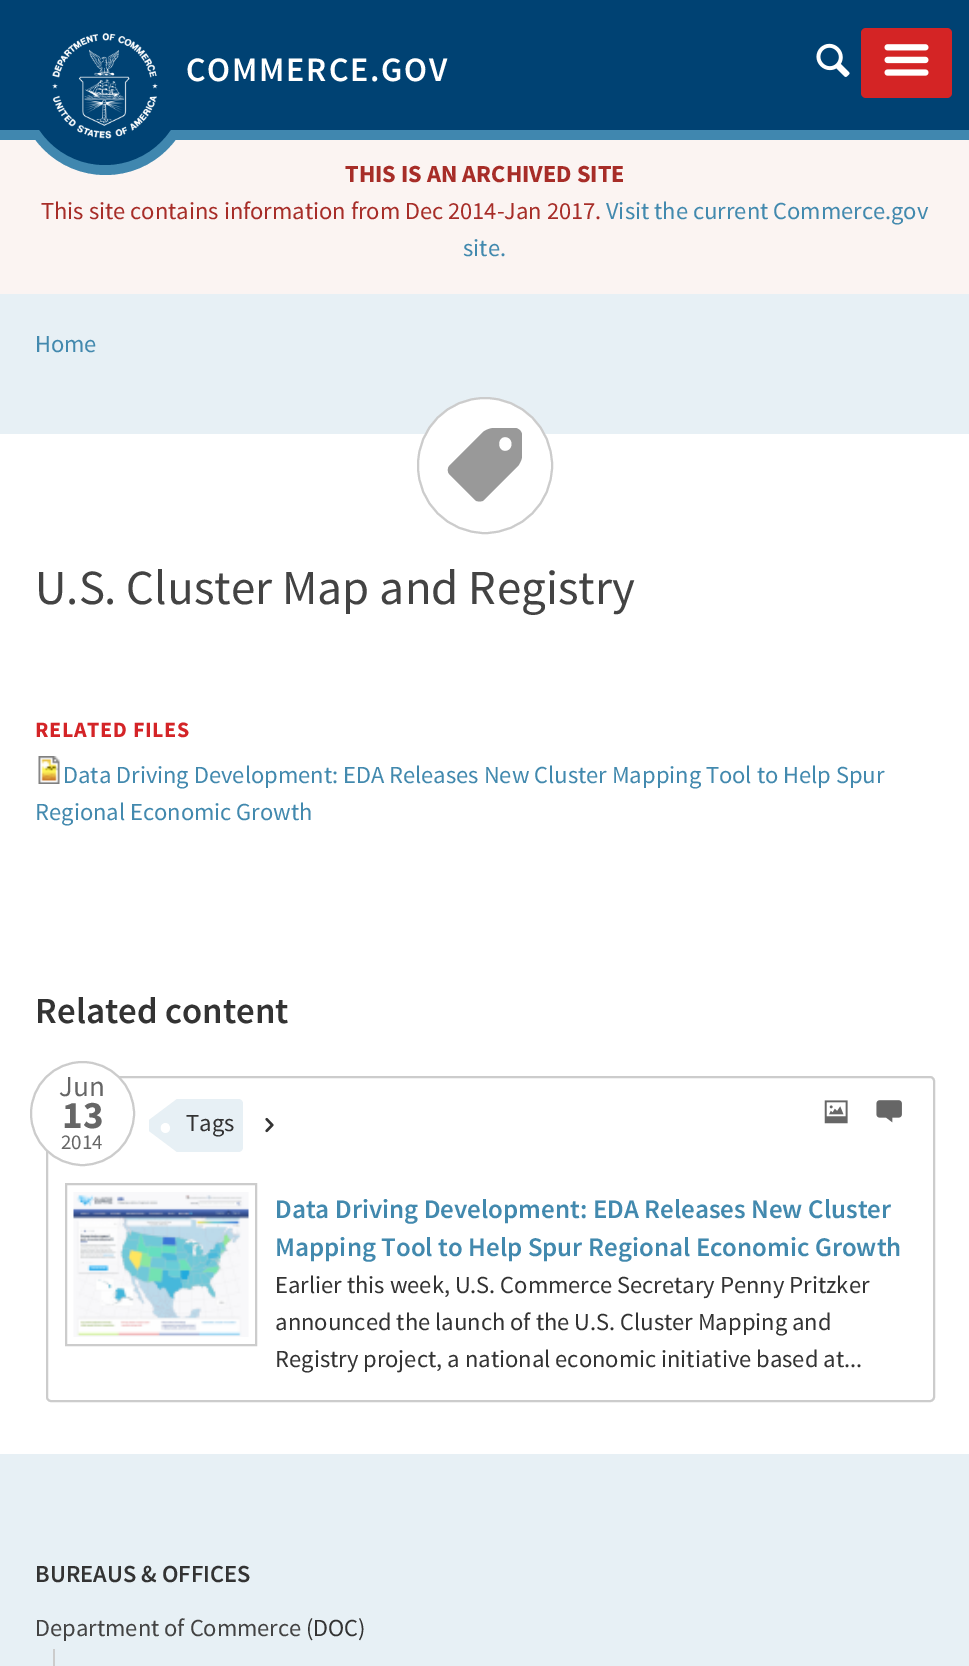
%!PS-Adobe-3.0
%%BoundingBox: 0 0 969 1666
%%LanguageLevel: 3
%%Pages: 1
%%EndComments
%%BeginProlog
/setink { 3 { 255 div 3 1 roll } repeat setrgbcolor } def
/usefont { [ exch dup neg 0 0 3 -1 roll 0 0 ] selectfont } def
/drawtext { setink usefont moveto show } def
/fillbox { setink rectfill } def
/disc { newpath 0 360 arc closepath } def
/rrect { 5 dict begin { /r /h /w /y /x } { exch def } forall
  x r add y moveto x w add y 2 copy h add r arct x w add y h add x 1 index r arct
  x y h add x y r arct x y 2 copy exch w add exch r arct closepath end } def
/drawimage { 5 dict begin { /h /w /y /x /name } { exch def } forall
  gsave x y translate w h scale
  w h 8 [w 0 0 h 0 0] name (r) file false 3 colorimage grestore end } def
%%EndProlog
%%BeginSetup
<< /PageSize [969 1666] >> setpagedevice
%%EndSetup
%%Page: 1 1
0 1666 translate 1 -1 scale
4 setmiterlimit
0 0 969 1666 255 255 255 fillbox
0 0 969 130 0 66 115 fillbox
(assets/img1.rgb) 816 43 34 34 drawimage
212 36 37 setink
861 28 91 70 5 rrect fill
(assets/img2.rgb) 884 44 45 32 drawimage
0 130 969 10 64 135 175 fillbox
0 140 969 154 251 244 242 fillbox
64 135 175 setink
105.5 87.5 87.5 disc fill
18 0 175 130 0 66 115 fillbox
105 86 79 disc fill
(assets/img3.rgb) 52 33 106 106 drawimage
/SourceSansPro-SemiBold 34.25 usefont
255 255 255 setink
186 81 moveto 1.75 0 (COMMERCE.GOV) ashow
(THIS IS AN ARCHIVED SITE) 345 182 /SourceSansPro-Bold 24.5 167 45 40 drawtext
(This site contains information from Dec 2014-Jan 2017.) 41 219 /SourceSansPro-Regular 24.5 167 45 40 drawtext
(Visit the current Commerce.gov) 606 219 /SourceSansPro-Regular 24.5 66 137 174 drawtext
(site.) 463 256 /SourceSansPro-Regular 24.5 66 137 174 drawtext
0 294 969 140 231 240 245 fillbox
(Home) 35 352 /SourceSansPro-Regular 24.5 66 137 174 drawtext
255 255 255 setink
418 398 134 135 67 rrect gsave fill grestore
204 204 204 setink
2 setlinewidth
stroke
153 153 153 setink
515 428 moveto 494 428 lineto 490 428 485 430 482 433 curveto 450 465 lineto 447 468 447 472 450 475 curveto 475 500 lineto 477 502 482 502 484 500 curveto 517 467 lineto 519 465 522 460 522 456 curveto 522 435 lineto 522 431 518 428 515 428 curveto closepath 505 451 moveto 497 451 497 437 505 437 curveto 514 437 514 451 505 451 curveto closepath fill
(U.S. Cluster Map and Registry) 35 604 /SourceSansPro-Regular 49 67 67 67 drawtext
/SourceSansPro-Bold 22 usefont
212 36 39 setink
35 737 moveto 0.7 0 (RELATED FILES) ashow
(assets/img4.rgb) 38 756 22 28 drawimage
(Data Driving Development: EDA Releases New Cluster Mapping Tool to Help Spur) 63 783 /SourceSansPro-Regular 24.5 66 137 174 drawtext
(Regional Economic Growth) 35 820 /SourceSansPro-Regular 24.5 66 137 174 drawtext
(Related content) 35 1023 /SourceSansPro-SemiBold 36.75 51 51 51 drawtext
204 204 204 setink
47 1077 887 324 4 rrect stroke
255 255 255 setink
82.5 1113.5 51.5 disc gsave fill grestore
204 204 204 setink
stroke
(Jun) 59 1096 /SourceSansPro-Regular 29 102 102 102 drawtext
(13) 62 1128 /SourceSansPro-Bold 39 102 102 102 drawtext
(2014) 61 1149 /SourceSansPro-Regular 21 102 102 102 drawtext
(assets/img5.rgb) 824 1100 24 24 drawimage
(assets/img6.rgb) 876 1100 26 23 drawimage
231 240 245 setink
177 1099 moveto 238 1099 lineto 241 1099 243 1101 243 1104 curveto 243 1147 lineto 243 1150 241 1152 238 1152 curveto 177 1152 lineto closepath fill
177 1099 moveto 177 1152 lineto 149 1131 lineto 149 1120 lineto closepath fill
(Tags) 186 1131 /SourceSansPro-Regular 24.5 51 51 51 drawtext
(•) 159 1139 /SourceSansPro-Regular 42 255 255 255 drawtext
(assets/img7.rgb) 265 1117 9 16 drawimage
(Data Driving Development: EDA Releases New Cluster) 275 1218 /SourceSansPro-SemiBold 26.95 66 137 174 drawtext
(Mapping Tool to Help Spur Regional Economic Growth) 275 1256 /SourceSansPro-SemiBold 26.95 66 137 174 drawtext
(Earlier this week, U.S. Commerce Secretary Penny Pritzker) 275 1293 /SourceSansPro-Regular 24.5 51 51 51 drawtext
(announced the launch of the U.S. Cluster Mapping and) 275 1330 /SourceSansPro-Regular 24.5 51 51 51 drawtext
(Registry project, a national economic initiative based at...) 275 1367 /SourceSansPro-Regular 24.5 51 51 51 drawtext
204 204 204 setink
66 1184 190 161 rectstroke
(assets/img8.rgb) 73 1192 176 145 drawimage
0 1454 969 212 231 240 245 fillbox
(BUREAUS & OFFICES) 35 1582 /SourceSansPro-SemiBold 24.5 51 51 51 drawtext
(Department of Commerce) 35 1636 /SourceSansPro-Regular 24.5 67 67 67 drawtext
(\(DOC\)) 306 1636 /SourceSansPro-Regular 24.5 51 51 51 drawtext
53 1649 2 17 204 204 204 fillbox
showpage
%%EOF
